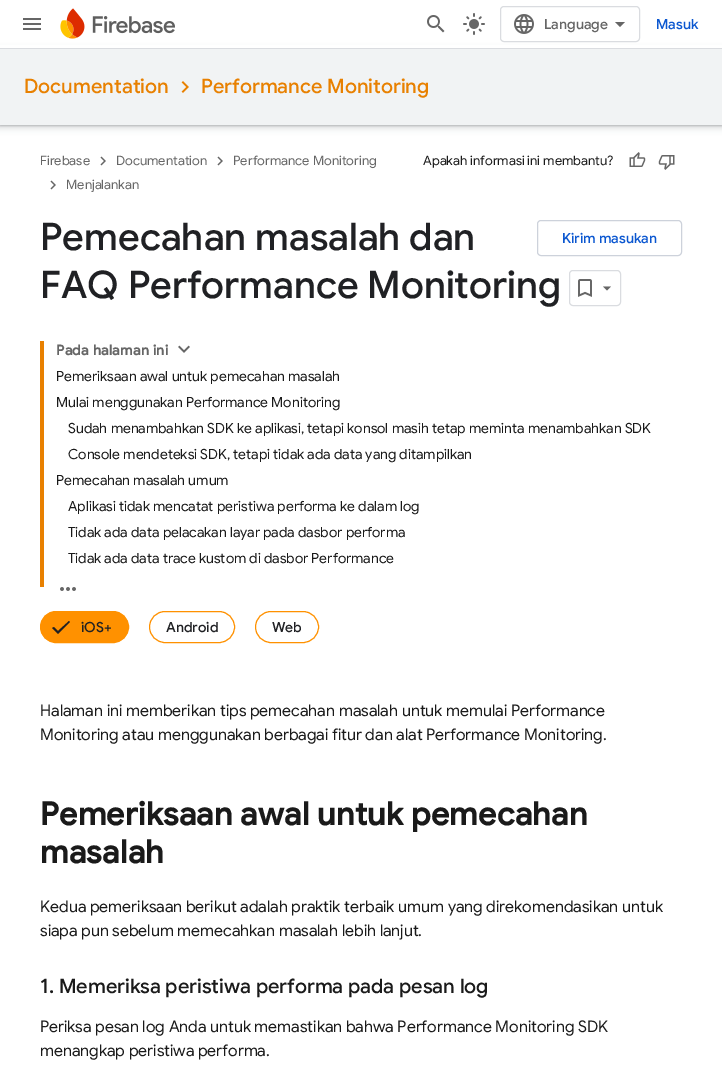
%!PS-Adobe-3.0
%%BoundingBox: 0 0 722 1075
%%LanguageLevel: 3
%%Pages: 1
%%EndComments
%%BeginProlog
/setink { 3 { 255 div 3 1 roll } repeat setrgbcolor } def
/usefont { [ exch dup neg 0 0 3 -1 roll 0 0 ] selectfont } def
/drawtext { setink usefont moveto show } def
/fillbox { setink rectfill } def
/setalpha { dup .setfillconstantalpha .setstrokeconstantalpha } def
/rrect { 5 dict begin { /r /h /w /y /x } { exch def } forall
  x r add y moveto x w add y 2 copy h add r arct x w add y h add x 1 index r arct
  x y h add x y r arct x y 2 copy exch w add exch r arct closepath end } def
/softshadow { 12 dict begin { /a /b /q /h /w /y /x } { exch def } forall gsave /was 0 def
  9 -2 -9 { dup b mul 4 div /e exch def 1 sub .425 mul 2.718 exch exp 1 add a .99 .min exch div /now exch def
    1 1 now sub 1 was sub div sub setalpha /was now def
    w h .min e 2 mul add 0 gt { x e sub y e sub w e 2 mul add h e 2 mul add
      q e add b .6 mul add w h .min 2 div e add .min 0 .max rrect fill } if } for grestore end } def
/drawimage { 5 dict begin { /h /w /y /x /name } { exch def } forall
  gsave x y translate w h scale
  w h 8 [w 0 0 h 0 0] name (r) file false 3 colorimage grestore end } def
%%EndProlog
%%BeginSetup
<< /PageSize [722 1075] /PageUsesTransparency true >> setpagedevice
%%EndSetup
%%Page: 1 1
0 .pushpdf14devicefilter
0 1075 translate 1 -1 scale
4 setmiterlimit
0 0 722 1075 255 255 255 fillbox
60 64 67 setink
-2 49 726 80 0 3 0.15 softshadow
0 50 722 76 0 1 0.3 softshadow
0 45 722 3 255 255 255 fillbox
0 48 722 1 218 220 224 fillbox
(assets/img1.rgb) 23 18 18 12 drawimage
(assets/img2.rgb) 60 8 115 31 drawimage
(assets/img3.rgb) 427 15 18 18 drawimage
(assets/img4.rgb) 463 13 22 22 drawimage
500.5 6.5 139 35 3.5 rrect stroke
(assets/img5.rgb) 514 14 20 20 drawimage
(Language) 544 29 /GoogleSans-Medium 14 102 102 102 drawtext
620 27 moveto 615 22 lineto 625 22 lineto closepath fill
(Masuk) 656 29 /GoogleSans-Medium 14 11 87 208 drawtext
0 49 722 76 241 243 244 fillbox
(Documentation) 24 93 /GoogleSans-Medium 20 232 128 0 drawtext
(assets/img6.rgb) 181 81 8 12 drawimage
(Performance Monitoring) 201 93 /GoogleSans-Medium 20 232 128 0 drawtext
(Firebase) 40 165 /GoogleSans-Regular 13 102 102 102 drawtext
(assets/img7.rgb) 100 156 6 10 drawimage
(Documentation) 116 165 /GoogleSans-Regular 13 102 102 102 drawtext
(assets/img7.rgb) 217 156 6 10 drawimage
(Performance Monitoring) 233 165 /GoogleSans-Regular 13 102 102 102 drawtext
(assets/img7.rgb) 50 180 6 10 drawimage
(Menjalankan) 66 189 /GoogleSans-Regular 13 102 102 102 drawtext
(Apakah informasi ini membantu?) 423 165 /GoogleSans-Regular 13 26 26 26 drawtext
(assets/img8.rgb) 629 152 17 15 drawimage
(assets/img9.rgb) 658 155 17 15 drawimage
(Pemecahan masalah dan) 40 250 /GoogleSans-Medium 38 32 33 36 drawtext
(FAQ Performance Monitoring) 40 298 /GoogleSans-Medium 38 32 33 36 drawtext
218 220 224 setink
569.5 270.5 51 35 3.5 rrect stroke
(assets/img10.rgb) 578 279 14 18 drawimage
102 102 102 setink
603 286.5 moveto 611 286.5 lineto 607 290.5 lineto closepath fill
205 210 219 setink
537.5 220.5 144 35 3.5 rrect stroke
(Kirim masukan) 562 243 /GoogleSans-Medium 14 11 87 208 drawtext
40 341 4 246 232 128 0 fillbox
/GoogleSans-Bold 14 usefont
102 102 102 setink
56 355 moveto 0.25 0 (Pada halaman ini) ashow
(assets/img11.rgb) 178 345 12 8 drawimage
(Pemeriksaan awal untuk pemecahan masalah) 56 381 /GoogleSans-Regular 14 26 26 26 drawtext
(Mulai menggunakan Performance Monitoring) 56 407 /GoogleSans-Regular 14 26 26 26 drawtext
(Sudah menambahkan SDK ke aplikasi, tetapi konsol masih tetap meminta menambahkan SDK) 68 433 /GoogleSans-Regular 14 26 26 26 drawtext
(Console mendeteksi SDK, tetapi tidak ada data yang ditampilkan) 68 459 /GoogleSans-Regular 14 26 26 26 drawtext
(Pemecahan masalah umum) 56 485 /GoogleSans-Regular 14 26 26 26 drawtext
(Aplikasi tidak mencatat peristiwa performa ke dalam log) 68 511 /GoogleSans-Regular 14 26 26 26 drawtext
(Tidak ada data pelacakan layar pada dasbor performa) 68 537 /GoogleSans-Regular 14 26 26 26 drawtext
(Tidak ada data trace kustom di dasbor Performance) 68 563 /GoogleSans-Regular 14 26 26 26 drawtext
(assets/img12.rgb) 60 587 16 4 drawimage
255 145 0 setink
40.5 611.5 88 31 15.5 rrect gsave fill grestore
stroke
32 33 36 setink
58 631 moveto 69 621 lineto 70 622 lineto 58 634 lineto 52 628 lineto 54 627 lineto closepath 73 639 moveto 73 639 lineto closepath 97 639 moveto 97 639 lineto closepath fill
(iOS+) 81 632 /GoogleSans-Medium 14 32 33 36 drawtext
255 145 0 setink
149.5 611.5 85 31 15.5 rrect stroke
(Android) 166 632 /GoogleSans-Medium 14 32 33 36 drawtext
255 145 0 setink
255.5 611.5 63 31 15.5 rrect stroke
(Web) 272 632 /GoogleSans-Medium 14 32 33 36 drawtext
(Halaman ini memberikan tips pemecahan masalah untuk memulai Performance) 40 716 /GoogleSans-Regular 16 26 26 26 drawtext
(Monitoring atau menggunakan berbagai fitur dan alat Performance Monitoring.) 40 740 /GoogleSans-Regular 16 26 26 26 drawtext
/GoogleSans-Bold 32 usefont
40 825 moveto 0.25 0 (Pemeriksaan awal untuk pemecahan) ashow
40 863 moveto 0.25 0 (masalah) ashow
(Kedua pemeriksaan berikut adalah praktik terbaik umum yang direkomendasikan untuk) 40 912 /GoogleSans-Regular 16 26 26 26 drawtext
(siapa pun sebelum memecahkan masalah lebih lanjut.) 40 936 /GoogleSans-Regular 16 26 26 26 drawtext
(1. Memeriksa peristiwa performa pada pesan log) 40 993 /GoogleSans-Medium 20 26 26 26 drawtext
(Periksa pesan log Anda untuk memastikan bahwa Performance Monitoring SDK) 40 1032 /GoogleSans-Regular 16 26 26 26 drawtext
(menangkap peristiwa performa.) 40 1056 /GoogleSans-Regular 16 26 26 26 drawtext
.poppdf14devicefilter showpage
%%EOF
